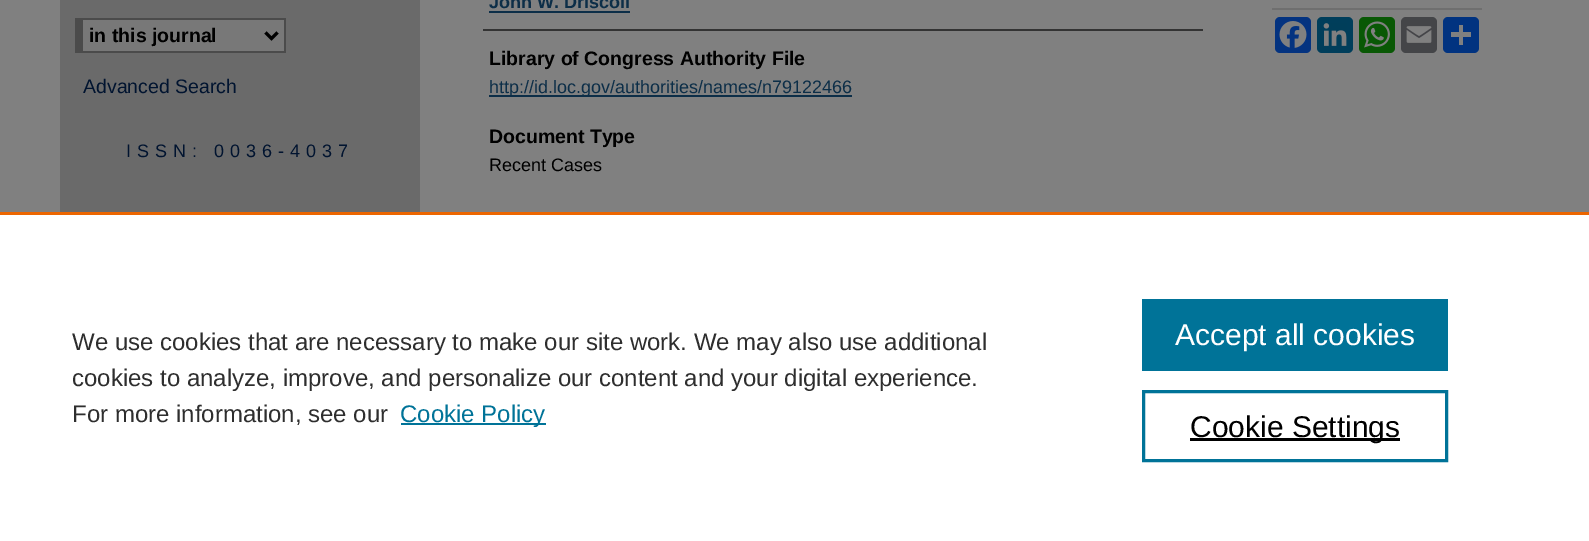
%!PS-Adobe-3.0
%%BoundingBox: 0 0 1589 541
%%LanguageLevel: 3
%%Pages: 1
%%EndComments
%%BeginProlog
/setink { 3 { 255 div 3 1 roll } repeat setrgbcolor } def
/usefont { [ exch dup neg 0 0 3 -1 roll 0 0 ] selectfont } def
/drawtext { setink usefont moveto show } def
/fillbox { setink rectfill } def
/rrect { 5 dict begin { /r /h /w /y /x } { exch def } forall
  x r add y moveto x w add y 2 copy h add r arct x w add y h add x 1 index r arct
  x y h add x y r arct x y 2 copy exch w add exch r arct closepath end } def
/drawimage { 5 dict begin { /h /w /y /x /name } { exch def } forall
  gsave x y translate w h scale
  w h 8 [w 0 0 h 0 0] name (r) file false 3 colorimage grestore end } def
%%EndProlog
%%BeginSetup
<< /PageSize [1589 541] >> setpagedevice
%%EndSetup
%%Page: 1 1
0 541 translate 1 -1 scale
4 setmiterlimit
0 0 1589 541 128 128 128 fillbox
60 0 360 212 106 106 106 fillbox
83 20 201 31 120 120 120 fillbox
75 18 210 2 75 75 75 fillbox
284 18 2 35 75 75 75 fillbox
75 51 210 2 75 75 75 fillbox
75 18 8 35 75 75 75 fillbox
0 0 0 setink
3 setlinewidth
265.5 32.5 moveto 271.5 38.5 lineto 277.5 32.5 lineto stroke
(in this journal) 89 42 /LiberationSans-Bold 19.5 0 0 0 drawtext
(Advanced Search) 83 93 /LiberationSans-Regular 19.5 1 20 48 drawtext
/LiberationSans-Regular 18 usefont
126 157 moveto 6 0 (ISSN: 0036-4037) ashow
483 29 720 2 51 51 51 fillbox
(John W. Driscoll) 489 8 /LiberationSans-Bold 18 12 46 72 drawtext
489 11 141 2 12 46 72 fillbox
(Library of Congress Authority File) 489 65 /LiberationSans-Bold 19.5 0 0 0 drawtext
489 95 363 2 12 46 72 fillbox
(http://id.loc.gov/authorities/names/n79122466) 489 93 /LiberationSans-Regular 18 12 46 72 drawtext
(Document Type) 489 143 /LiberationSans-Bold 19.5 0 0 0 drawtext
(Recent Cases) 489 171 /LiberationSans-Regular 18 0 0 0 drawtext
1272 8 210 2 111 111 111 fillbox
4 51 128 setink
1275 17 36 36 5 rrect fill
(assets/img1.rgb) 1279 21 28 27 drawimage
0 62 91 setink
1317 17 36 36 5 rrect fill
(assets/img2.rgb) 1323 23 24 23 drawimage
9 88 5 setink
1359 17 36 36 5 rrect fill
(assets/img3.rgb) 1364 21 26 27 drawimage
68 69 72 setink
1401 17 36 36 5 rrect fill
(assets/img4.rgb) 1406 26 26 17 drawimage
1 51 128 setink
1443 17 36 36 5 rrect fill
1459 25 4 20 128 128 128 fillbox
1451 32 20 5 128 128 128 fillbox
0 215 1589 326 255 255 255 fillbox
0 212 1589 3 235 101 0 fillbox
(We use cookies that are necessary to make our site work. We may also use additional) 72 350 /LiberationSans-Regular 24 46 46 46 drawtext
(cookies to analyze, improve, and personalize our content and your digital experience.) 72 386 /LiberationSans-Regular 24 46 46 46 drawtext
(For more information, see our) 72 422 /LiberationSans-Regular 24 46 46 46 drawtext
401 423 145 2 0 115 152 fillbox
(Cookie Policy) 400 422 /LiberationSans-Regular 24 0 115 152 drawtext
1142 299 306 72 0 115 152 fillbox
(Accept all cookies) 1175 345 /LiberationSans-Regular 30 255 255 255 drawtext
0 115 152 setink
1143.5 391.5 303 69 rectstroke
1190 438 210 3 0 0 0 fillbox
(Cookie Settings) 1190 437 /LiberationSans-Regular 30 0 0 0 drawtext
showpage
%%EOF
